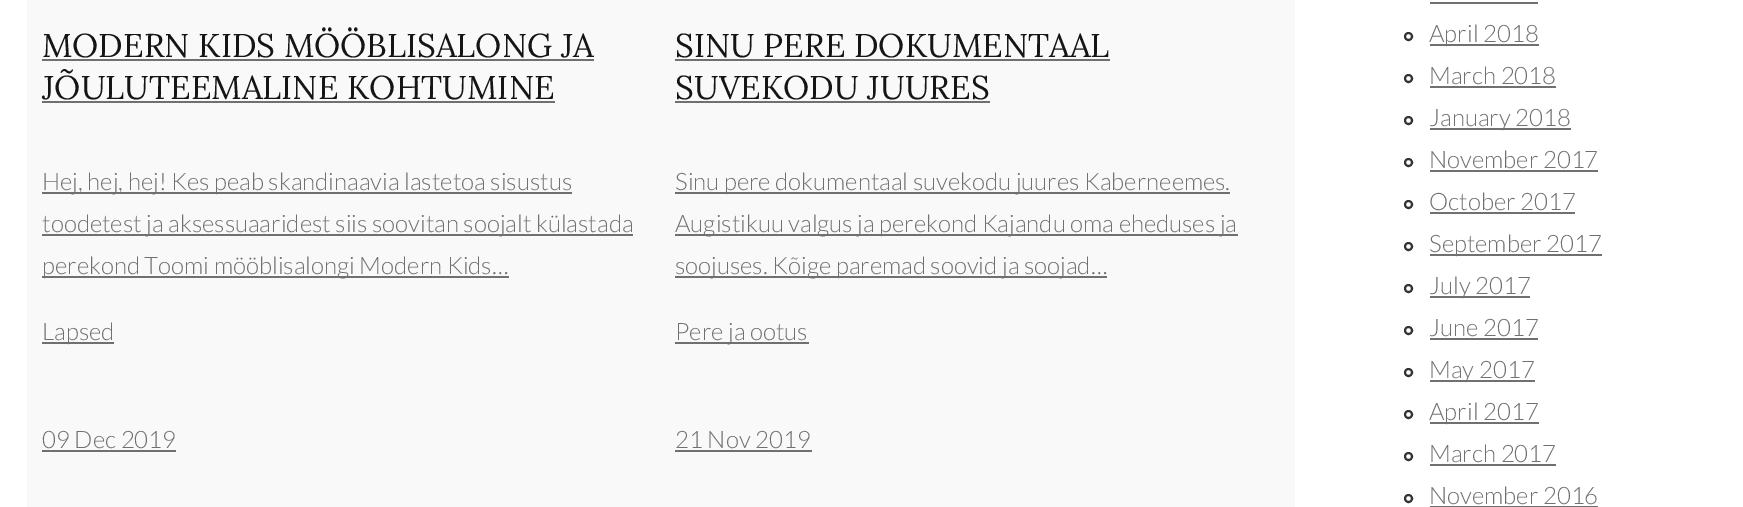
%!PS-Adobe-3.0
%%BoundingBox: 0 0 1743 507
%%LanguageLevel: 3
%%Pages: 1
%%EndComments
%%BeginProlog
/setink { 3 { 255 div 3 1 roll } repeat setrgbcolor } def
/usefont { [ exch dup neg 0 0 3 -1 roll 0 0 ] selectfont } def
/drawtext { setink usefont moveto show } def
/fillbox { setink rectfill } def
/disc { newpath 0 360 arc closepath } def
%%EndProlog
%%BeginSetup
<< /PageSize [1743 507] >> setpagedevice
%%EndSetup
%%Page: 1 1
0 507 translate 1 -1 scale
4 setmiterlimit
0 0 1743 507 255 255 255 fillbox
27 0 1268 311 249 249 249 fillbox
(MODERN KIDS MÖÖBLISALONG JA) 42 57 /Lora-Regular 33 21 21 21 drawtext
42 59 552 2 112 112 112 fillbox
(JÕULUTEEMALINE KOHTUMINE) 42 99 /Lora-Regular 33 21 21 21 drawtext
42 101 513 2 112 112 112 fillbox
42 192 530 2 112 112 112 fillbox
(Hej, hej, hej! Kes peab skandinaavia lastetoa sisustus) 42 190 /Lato-Light 24 112 112 112 drawtext
42 234 591 2 112 112 112 fillbox
(toodetest ja aksessuaaridest siis soovitan soojalt külastada) 42 232 /Lato-Light 24 112 112 112 drawtext
42 276 467 2 112 112 112 fillbox
(perekond Toomi mööblisalongi Modern Kids…) 42 274 /Lato-Light 24 112 112 112 drawtext
(SINU PERE DOKUMENTAAL) 675 57 /Lora-Regular 33 21 21 21 drawtext
675 59 435 2 112 112 112 fillbox
(SUVEKODU JUURES) 675 99 /Lora-Regular 33 21 21 21 drawtext
675 101 315 2 112 112 112 fillbox
675 192 555 2 112 112 112 fillbox
(Sinu pere dokumentaal suvekodu juures Kaberneemes.) 675 190 /Lato-Light 24 112 112 112 drawtext
675 234 563 2 112 112 112 fillbox
(Augistikuu valgus ja perekond Kajandu oma eheduses ja) 675 232 /Lato-Light 24 112 112 112 drawtext
675 276 432 2 112 112 112 fillbox
(soojuses. Kõige paremad soovid ja soojad…) 675 274 /Lato-Light 24 112 112 112 drawtext
27 311 1268 196 249 249 249 fillbox
42 342 72 2 112 112 112 fillbox
(Lapsed) 42 340 /Lato-Light 24 112 112 112 drawtext
(09 Dec 2019) 42 448 /Lato-Light 24 112 112 112 drawtext
42 450 134 2 112 112 112 fillbox
675 342 134 2 112 112 112 fillbox
(Pere ja ootus) 675 340 /Lato-Light 24 112 112 112 drawtext
(21 Nov 2019) 675 448 /Lato-Light 24 112 112 112 drawtext
675 450 137 2 112 112 112 fillbox
1430 2 108 2 112 112 112 fillbox
51 51 51 setink
2 setlinewidth
1408.5 36.5 3.5 disc stroke
1430 44 109 2 112 112 112 fillbox
(April 2018) 1429 42 /Lato-Light 24 112 112 112 drawtext
51 51 51 setink
1408.5 78.5 3.5 disc stroke
(March 2018) 1429 84 /Lato-Light 24 112 112 112 drawtext
1430 86 126 2 112 112 112 fillbox
51 51 51 setink
1408.5 120.5 3.5 disc stroke
1430 128 141 2 112 112 112 fillbox
(January 2018) 1429 126 /Lato-Light 24 112 112 112 drawtext
51 51 51 setink
1408.5 162.5 3.5 disc stroke
(November 2017) 1429 168 /Lato-Light 24 112 112 112 drawtext
1430 170 168 2 112 112 112 fillbox
51 51 51 setink
1408.5 204.5 3.5 disc stroke
(October 2017) 1429 210 /Lato-Light 24 112 112 112 drawtext
1430 212 145 2 112 112 112 fillbox
51 51 51 setink
1408.5 246.5 3.5 disc stroke
1430 254 172 2 112 112 112 fillbox
(September 2017) 1429 252 /Lato-Light 24 112 112 112 drawtext
51 51 51 setink
1408.5 288.5 3.5 disc stroke
1430 296 100 2 112 112 112 fillbox
(July 2017) 1429 294 /Lato-Light 24 112 112 112 drawtext
51 51 51 setink
1408.5 330.5 3.5 disc stroke
(June 2017) 1429 336 /Lato-Light 24 112 112 112 drawtext
1430 338 108 2 112 112 112 fillbox
51 51 51 setink
1408.5 372.5 3.5 disc stroke
1430 380 105 2 112 112 112 fillbox
(May 2017) 1429 378 /Lato-Light 24 112 112 112 drawtext
51 51 51 setink
1408.5 414.5 3.5 disc stroke
1430 422 109 2 112 112 112 fillbox
(April 2017) 1429 420 /Lato-Light 24 112 112 112 drawtext
51 51 51 setink
1408.5 456.5 3.5 disc stroke
(March 2017) 1429 462 /Lato-Light 24 112 112 112 drawtext
1430 464 126 2 112 112 112 fillbox
51 51 51 setink
1408.5 498.5 3.5 disc stroke
(November 2016) 1429 504 /Lato-Light 24 112 112 112 drawtext
1430 506 168 1 112 112 112 fillbox
showpage
%%EOF
